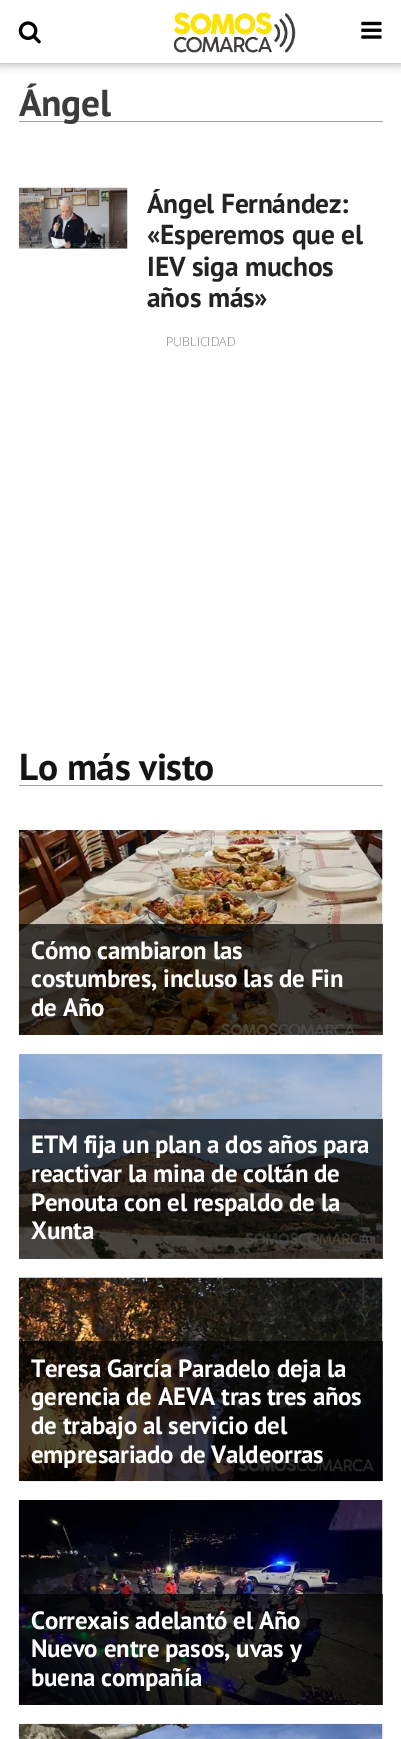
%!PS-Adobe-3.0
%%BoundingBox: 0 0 401 1739
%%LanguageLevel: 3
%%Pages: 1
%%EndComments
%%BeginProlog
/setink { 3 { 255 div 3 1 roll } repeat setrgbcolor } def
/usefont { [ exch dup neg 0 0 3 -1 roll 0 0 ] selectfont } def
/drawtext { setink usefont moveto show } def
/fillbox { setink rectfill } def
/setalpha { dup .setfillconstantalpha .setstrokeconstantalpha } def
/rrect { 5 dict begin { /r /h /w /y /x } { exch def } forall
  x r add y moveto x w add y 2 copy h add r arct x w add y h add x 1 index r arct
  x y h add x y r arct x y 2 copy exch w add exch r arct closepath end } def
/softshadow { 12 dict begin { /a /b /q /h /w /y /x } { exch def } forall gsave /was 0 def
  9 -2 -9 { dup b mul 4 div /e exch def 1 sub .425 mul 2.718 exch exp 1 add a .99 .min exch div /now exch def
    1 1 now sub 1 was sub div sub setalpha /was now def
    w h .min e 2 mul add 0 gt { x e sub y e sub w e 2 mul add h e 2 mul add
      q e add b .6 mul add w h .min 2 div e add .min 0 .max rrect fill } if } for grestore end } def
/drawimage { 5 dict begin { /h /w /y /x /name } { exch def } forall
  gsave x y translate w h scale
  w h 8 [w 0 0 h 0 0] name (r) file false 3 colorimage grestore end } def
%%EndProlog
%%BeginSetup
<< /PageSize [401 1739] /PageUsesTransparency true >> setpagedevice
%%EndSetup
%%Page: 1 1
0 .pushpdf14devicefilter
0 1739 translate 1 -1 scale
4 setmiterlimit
0 0 401 1739 255 255 255 fillbox
0 0 0 setink
0 0 401 63 0 5 0.4 softshadow
0 0 401 63 255 255 255 fillbox
(assets/img1.rgb) 173 12 123 41 drawimage
(assets/img2.rgb) 18 21 23 23 drawimage
(assets/img3.rgb) 361 21 21 18 drawimage
19 121 364 1 158 158 158 fillbox
/PTSans-Bold 37.5 usefont
60 60 60 setink
19 116 moveto -0.4 0 (Ángel) ashow
(assets/img4.rgb) 18 187 110 62 drawimage
/PTSans-Bold 27.5 usefont
36 36 36 setink
147 213 moveto -0.25 0 (Ángel Fernández:) ashow
147 244 moveto -0.25 0 («Esperemos que el) ashow
147 276 moveto -0.25 0 (IEV siga muchos) ashow
147 307 moveto -0.25 0 (años más») ashow
(PUBLICIDAD) 166 346 /OpenSans-Light 12.5 131 131 131 drawtext
/PTSans-Bold 37.5 usefont
20 20 20 setink
19 780 moveto -0.4 0 (Lo más visto) ashow
19 785 364 1 158 158 158 fillbox
(assets/img5.rgb) 18 830 365 205 drawimage
0.7 setalpha
19 924 364 111 0 0 0 fillbox
/PTSans-Bold 25 usefont
1 setalpha
255 255 255 setink
31 959 moveto -0.25 0 (Cómo cambiaron las) ashow
31 987 moveto -0.25 0 (costumbres, incluso las de Fin) ashow
31 1016 moveto -0.25 0 (de Año) ashow
(assets/img6.rgb) 18 1053 365 206 drawimage
0.7 setalpha
19 1119 364 140 0 0 0 fillbox
1 setalpha
255 255 255 setink
31 1153 moveto -0.25 0 (ETM fija un plan a dos años para) ashow
31 1182 moveto -0.25 0 (reactivar la mina de coltán de) ashow
31 1211 moveto -0.25 0 (Penouta con el respaldo de la) ashow
31 1239 moveto -0.25 0 (Xunta) ashow
(assets/img7.rgb) 18 1277 365 205 drawimage
0.7 setalpha
19 1341 364 140 0 0 0 fillbox
1 setalpha
255 255 255 setink
31 1377 moveto -0.25 0 (Teresa García Paradelo deja la) ashow
31 1405 moveto -0.25 0 (gerencia de AEVA tras tres años) ashow
31 1434 moveto -0.25 0 (de trabajo al servicio del) ashow
31 1463 moveto -0.25 0 (empresariado de Valdeorras) ashow
(assets/img8.rgb) 18 1500 365 205 drawimage
0.7 setalpha
19 1594 364 111 0 0 0 fillbox
1 setalpha
255 255 255 setink
31 1629 moveto -0.25 0 (Correxais adelantó el Año) ashow
31 1657 moveto -0.25 0 (Nuevo entre pasos, uvas y) ashow
31 1686 moveto -0.25 0 (buena compañía) ashow
(assets/img9.rgb) 18 1723 365 16 drawimage
.poppdf14devicefilter showpage
%%EOF
